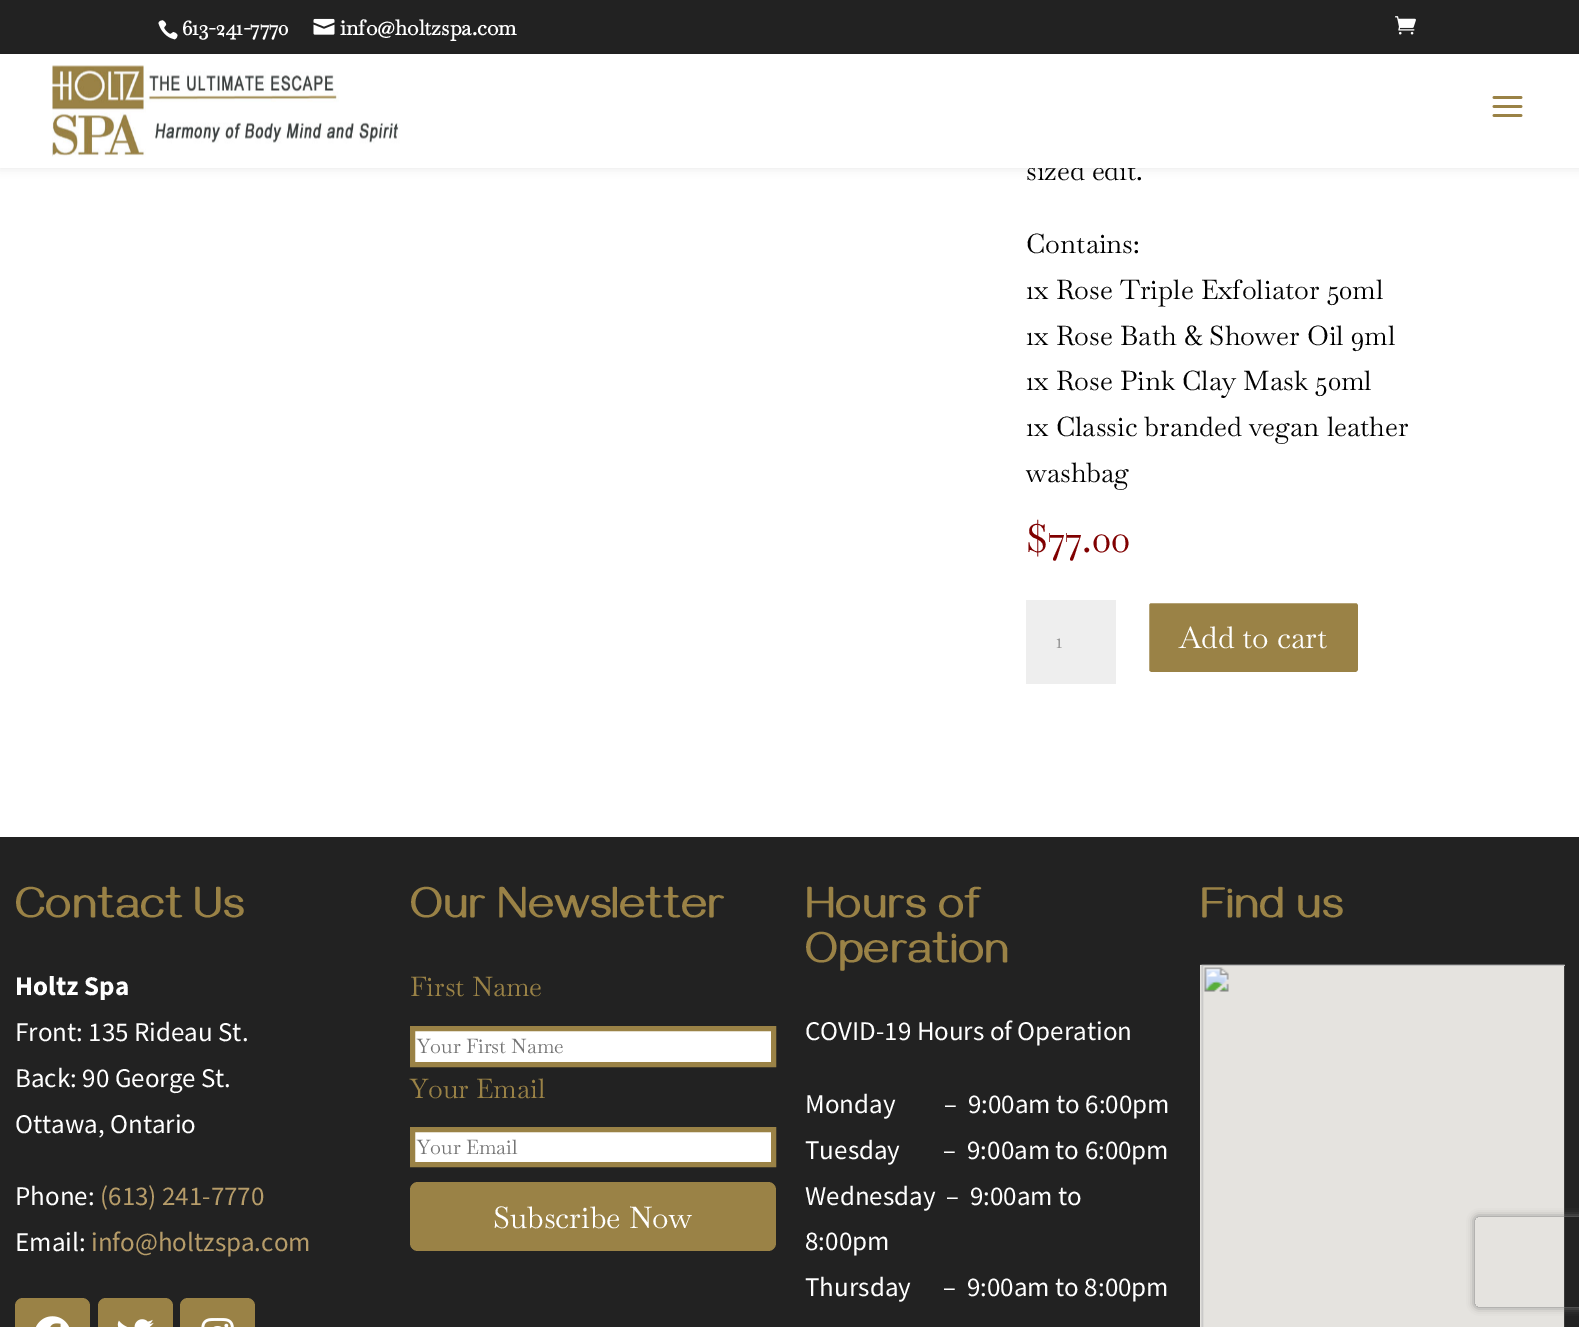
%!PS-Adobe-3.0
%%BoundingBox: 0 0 1579 1327
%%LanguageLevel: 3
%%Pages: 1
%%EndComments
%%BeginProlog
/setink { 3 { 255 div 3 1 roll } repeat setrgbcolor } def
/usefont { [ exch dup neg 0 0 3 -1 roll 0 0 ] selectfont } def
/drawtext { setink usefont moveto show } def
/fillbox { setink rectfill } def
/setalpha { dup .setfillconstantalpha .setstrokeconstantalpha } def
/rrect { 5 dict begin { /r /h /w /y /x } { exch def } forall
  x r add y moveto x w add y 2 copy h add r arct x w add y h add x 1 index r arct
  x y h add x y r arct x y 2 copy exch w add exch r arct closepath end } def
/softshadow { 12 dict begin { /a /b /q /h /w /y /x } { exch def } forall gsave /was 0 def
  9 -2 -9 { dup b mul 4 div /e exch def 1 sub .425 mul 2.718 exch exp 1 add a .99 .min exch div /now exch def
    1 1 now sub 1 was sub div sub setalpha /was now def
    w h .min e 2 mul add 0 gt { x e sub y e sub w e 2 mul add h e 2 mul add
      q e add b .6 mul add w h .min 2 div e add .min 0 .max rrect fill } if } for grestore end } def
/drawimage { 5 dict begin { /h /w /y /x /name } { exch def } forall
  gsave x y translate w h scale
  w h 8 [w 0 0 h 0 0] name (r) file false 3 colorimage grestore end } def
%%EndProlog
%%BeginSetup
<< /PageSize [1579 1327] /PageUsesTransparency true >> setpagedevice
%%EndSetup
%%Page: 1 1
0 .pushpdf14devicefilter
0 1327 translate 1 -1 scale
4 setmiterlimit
0 0 1579 1327 34 34 34 fillbox
0 168 1579 669 255 255 255 fillbox
0 0 0 setink
0 54 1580 114 0 5 0.1 softshadow
(assets/img1.rgb) 158 20 20 20 drawimage
(613-241-7770) 182 35 /Baskervville-Bold 21 255 255 255 drawtext
(assets/img2.rgb) 313 18 22 17 drawimage
(info@holtzspa.com) 340 35 /Baskervville-Bold 21 255 255 255 drawtext
(assets/img3.rgb) 1395 16 21 19 drawimage
(sized edit.) 1026 180 /Baskervville-Regular 27 0 0 0 drawtext
0 54 1579 114 255 255 255 fillbox
(assets/img4.rgb) 52 65 348 92 drawimage
(assets/img5.rgb) 1492 96 31 21 drawimage
(Contains:) 1026 253 /Baskervville-Regular 27 0 0 0 drawtext
(1x Rose Triple Exfoliator 50ml) 1026 299 /Baskervville-Regular 27 0 0 0 drawtext
(1x Rose Bath & Shower Oil 9ml) 1026 345 /Baskervville-Regular 27 0 0 0 drawtext
(1x Rose Pink Clay Mask 50ml) 1026 390 /Baskervville-Regular 27 0 0 0 drawtext
(1x Classic branded vegan leather) 1026 436 /Baskervville-Regular 27 0 0 0 drawtext
(washbag) 1026 482 /Baskervville-Regular 27 0 0 0 drawtext
($77.00) 1026 552 /Baskervville-Regular 39 128 0 0 drawtext
1026 600 90 84 238 238 238 fillbox
(1) 1056 648 /Baskervville-Regular 21 153 153 153 drawtext
154 130 70 setink
1147.5 601.5 212 72 3.5 rrect gsave fill grestore
255 255 255 setink
3 setlinewidth
stroke
(Add to cart) 1179 648 /Baskervville-Regular 30 255 255 255 drawtext
(Contact Us) 15 917 /Gayathri-Bold 45 154 130 70 drawtext
(Holtz Spa) 15 995 /Mada-Bold 27 255 255 255 drawtext
(Front: 135 Rideau St.) 15 1041 /Mada-Regular 27 255 255 255 drawtext
(Back: 90 George St.) 15 1087 /Mada-Regular 27 255 255 255 drawtext
(Ottawa, Ontario) 15 1133 /Mada-Regular 27 255 255 255 drawtext
(Phone:) 15 1205 /Mada-Regular 27 255 255 255 drawtext
(\(613\) 241-7770) 100 1205 /Mada-Regular 27 182 156 105 drawtext
(Email:) 15 1251 /Mada-Regular 27 255 255 255 drawtext
(info@holtzspa.com) 91 1251 /Mada-Regular 27 182 156 105 drawtext
154 130 70 setink
15 1298 75 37 8 rrect fill
(assets/img6.rgb) 36 1316 33 11 drawimage
98 1298 75 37 8 rrect fill
(assets/img7.rgb) 117 1319 37 8 drawimage
180 1298 75 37 8 rrect fill
(assets/img8.rgb) 201 1318 33 9 drawimage
(Our Newsletter) 410 917 /Gayathri-Bold 45 154 130 70 drawtext
(First Name) 410 996 /Baskervville-Regular 27 154 130 70 drawtext
255 255 255 setink
412.5 1028.5 moveto 773.5 1028.5 lineto 773.5 1064.5 lineto 412.5 1064.5 lineto closepath gsave fill grestore
154 130 70 setink
5 setlinewidth
stroke
(Your First Name) 417 1053 /Baskervville-Regular 20 117 117 117 drawtext
(Your Email) 410 1098 /Baskervville-Regular 27 154 130 70 drawtext
255 255 255 setink
412.5 1129.5 moveto 773.5 1129.5 lineto 773.5 1164.5 lineto 412.5 1164.5 lineto closepath gsave fill grestore
154 130 70 setink
stroke
(Your Email) 417 1154 /Baskervville-Regular 20 117 117 117 drawtext
154 130 70 setink
410 1182 366 69 8 rrect fill
(Subscribe Now) 493 1228 /Baskervville-Regular 30 255 255 255 drawtext
(Hours of) 805 917 /Gayathri-Bold 45 154 130 70 drawtext
(Operation) 805 962 /Gayathri-Bold 45 154 130 70 drawtext
(COVID-19 Hours of Operation) 805 1040 /Mada-Regular 27 255 255 255 drawtext
(Monday         –  9:00am to 6:00pm) 805 1113 /Mada-Regular 27 255 255 255 drawtext
(Tuesday        –  9:00am to 6:00pm) 805 1159 /Mada-Regular 27 255 255 255 drawtext
(Wednesday  –  9:00am to) 805 1205 /Mada-Regular 27 255 255 255 drawtext
(8:00pm) 805 1250 /Mada-Regular 27 255 255 255 drawtext
(Thursday      –  9:00am to 8:00pm) 805 1296 /Mada-Regular 27 255 255 255 drawtext
(Find us) 1200 917 /Gayathri-Bold 45 154 130 70 drawtext
(assets/img9.rgb) 1200 964 365 363 drawimage
gsave
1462 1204 moveto 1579 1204 lineto 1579 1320 lineto 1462 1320 lineto closepath 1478 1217 moveto 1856 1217 lineto 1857.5 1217 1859 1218.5 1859 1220 curveto 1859 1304 lineto 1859 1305.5 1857.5 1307 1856 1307 curveto 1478 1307 lineto 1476.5 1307 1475 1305.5 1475 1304 curveto 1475 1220 lineto 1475 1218.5 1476.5 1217 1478 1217 curveto closepath eoclip newpath
128 128 128 setink
1475 1217 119 90 3 4 1 softshadow
grestore
.poppdf14devicefilter showpage
%%EOF
